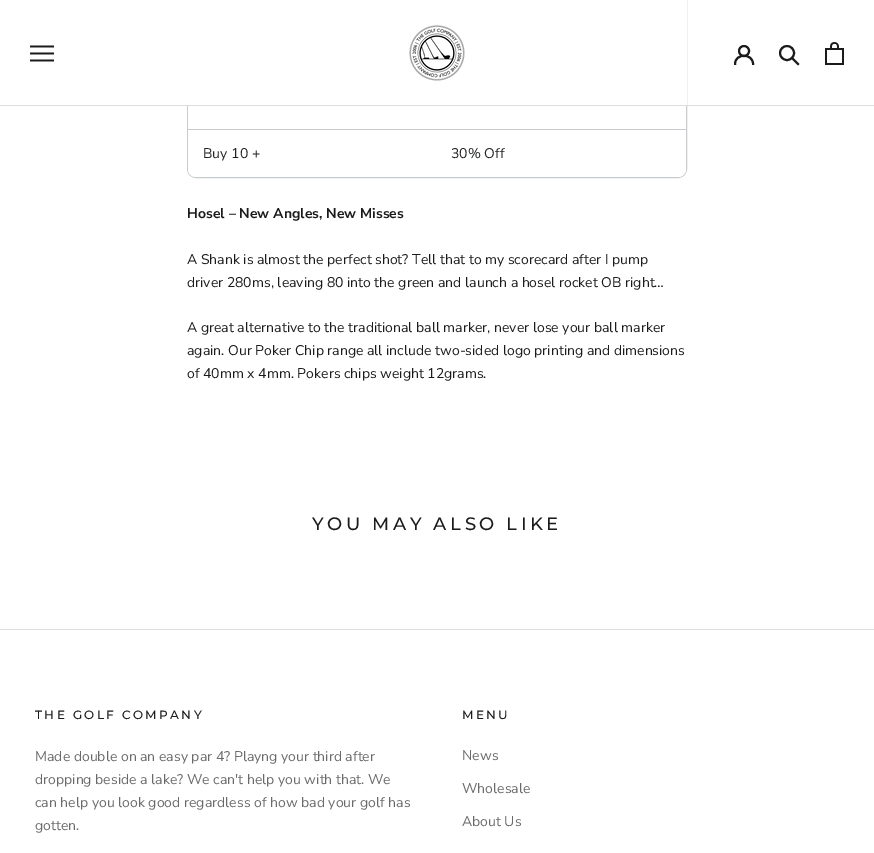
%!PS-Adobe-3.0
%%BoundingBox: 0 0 874 853
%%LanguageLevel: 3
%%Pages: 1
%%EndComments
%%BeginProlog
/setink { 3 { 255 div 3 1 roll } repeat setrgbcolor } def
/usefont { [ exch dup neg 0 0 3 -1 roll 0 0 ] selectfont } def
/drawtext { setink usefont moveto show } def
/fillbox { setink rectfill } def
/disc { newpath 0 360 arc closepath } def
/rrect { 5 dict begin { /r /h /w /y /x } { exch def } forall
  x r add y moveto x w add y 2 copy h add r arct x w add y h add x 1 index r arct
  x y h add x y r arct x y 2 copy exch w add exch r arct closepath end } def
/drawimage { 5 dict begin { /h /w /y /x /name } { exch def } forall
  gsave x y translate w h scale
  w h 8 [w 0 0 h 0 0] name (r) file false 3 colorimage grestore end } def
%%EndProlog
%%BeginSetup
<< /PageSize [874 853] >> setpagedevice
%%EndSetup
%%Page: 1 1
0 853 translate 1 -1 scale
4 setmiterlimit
0 0 874 853 255 255 255 fillbox
201 204 207 setink
187.5 -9.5 499 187 8.5 rrect stroke
255 255 255 setink
188 -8 moveto 686 -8 lineto 686 169 lineto 686 173.5 682.5 177 678 177 curveto 196 177 lineto 191.5 177 188 173.5 188 169 curveto closepath fill
187 0 500 105 255 255 255 fillbox
0 105 874 1 221 221 221 fillbox
(assets/img1.rgb) 30 45 24 17 drawimage
(assets/img2.rgb) 409 25 56 56 drawimage
28 27 27 setink
2 setlinewidth
2 setlinecap
735 64 moveto 735 53 753 53 753 64 curveto stroke
0 setlinecap
744 51 5 disc stroke
2 setlinecap
798 64 moveto 792.5 58.5 lineto stroke
0 setlinecap
787 53 7 disc stroke
(assets/img3.rgb) 825 42 19 23 drawimage
188 129 498 1 201 204 207 fillbox
(Buy 10 +) 203 158 /NunitoSans-Regular 14 32 34 35 drawtext
(30% Off) 451 158 /NunitoSans-Regular 14 32 34 35 drawtext
(Hosel – New Angles, New Misses) 187 218 /NunitoSans-Bold 14 28 27 27 drawtext
(A Shank is almost the perfect shot? Tell that to my scorecard after I pump) 187 264 /NunitoSans-Regular 14 28 27 27 drawtext
(driver 280ms, leaving 80 into the green and launch a hosel rocket OB right…) 187 287 /NunitoSans-Regular 14 28 27 27 drawtext
(A great alternative to the traditional ball marker, never lose your ball marker) 187 332 /NunitoSans-Regular 14 28 27 27 drawtext
(again. Our Poker Chip range all include two-sided logo printing and dimensions) 187 355 /NunitoSans-Regular 14 28 27 27 drawtext
(of 40mm x 4mm. Pokers chips weight 12grams.) 187 378 /NunitoSans-Regular 14 28 27 27 drawtext
/Montserrat-Medium 18 usefont
312 530 moveto 3.6 0 (YOU MAY ALSO LIKE) ashow
0 629 874 1 221 221 221 fillbox
/Montserrat-Medium 12 usefont
28 27 27 setink
35 719 moveto 2.4 0 (THE GOLF COMPANY) ashow
(Made double on an easy par 4? Playng your third after) 35 761 /NunitoSans-Regular 14 106 106 106 drawtext
(dropping beside a lake? We can't help you with that. We) 35 784 /NunitoSans-Regular 14 106 106 106 drawtext
(can help you look good regardless of how bad your golf has) 35 807 /NunitoSans-Regular 14 106 106 106 drawtext
(gotten.) 35 830 /NunitoSans-Regular 14 106 106 106 drawtext
/Montserrat-Medium 12 usefont
28 27 27 setink
462 719 moveto 2.4 0 (MENU) ashow
(News) 462 760 /NunitoSans-Regular 14 106 106 106 drawtext
(Wholesale) 462 793 /NunitoSans-Regular 14 106 106 106 drawtext
(About Us) 462 826 /NunitoSans-Regular 14 106 106 106 drawtext
showpage
%%EOF
